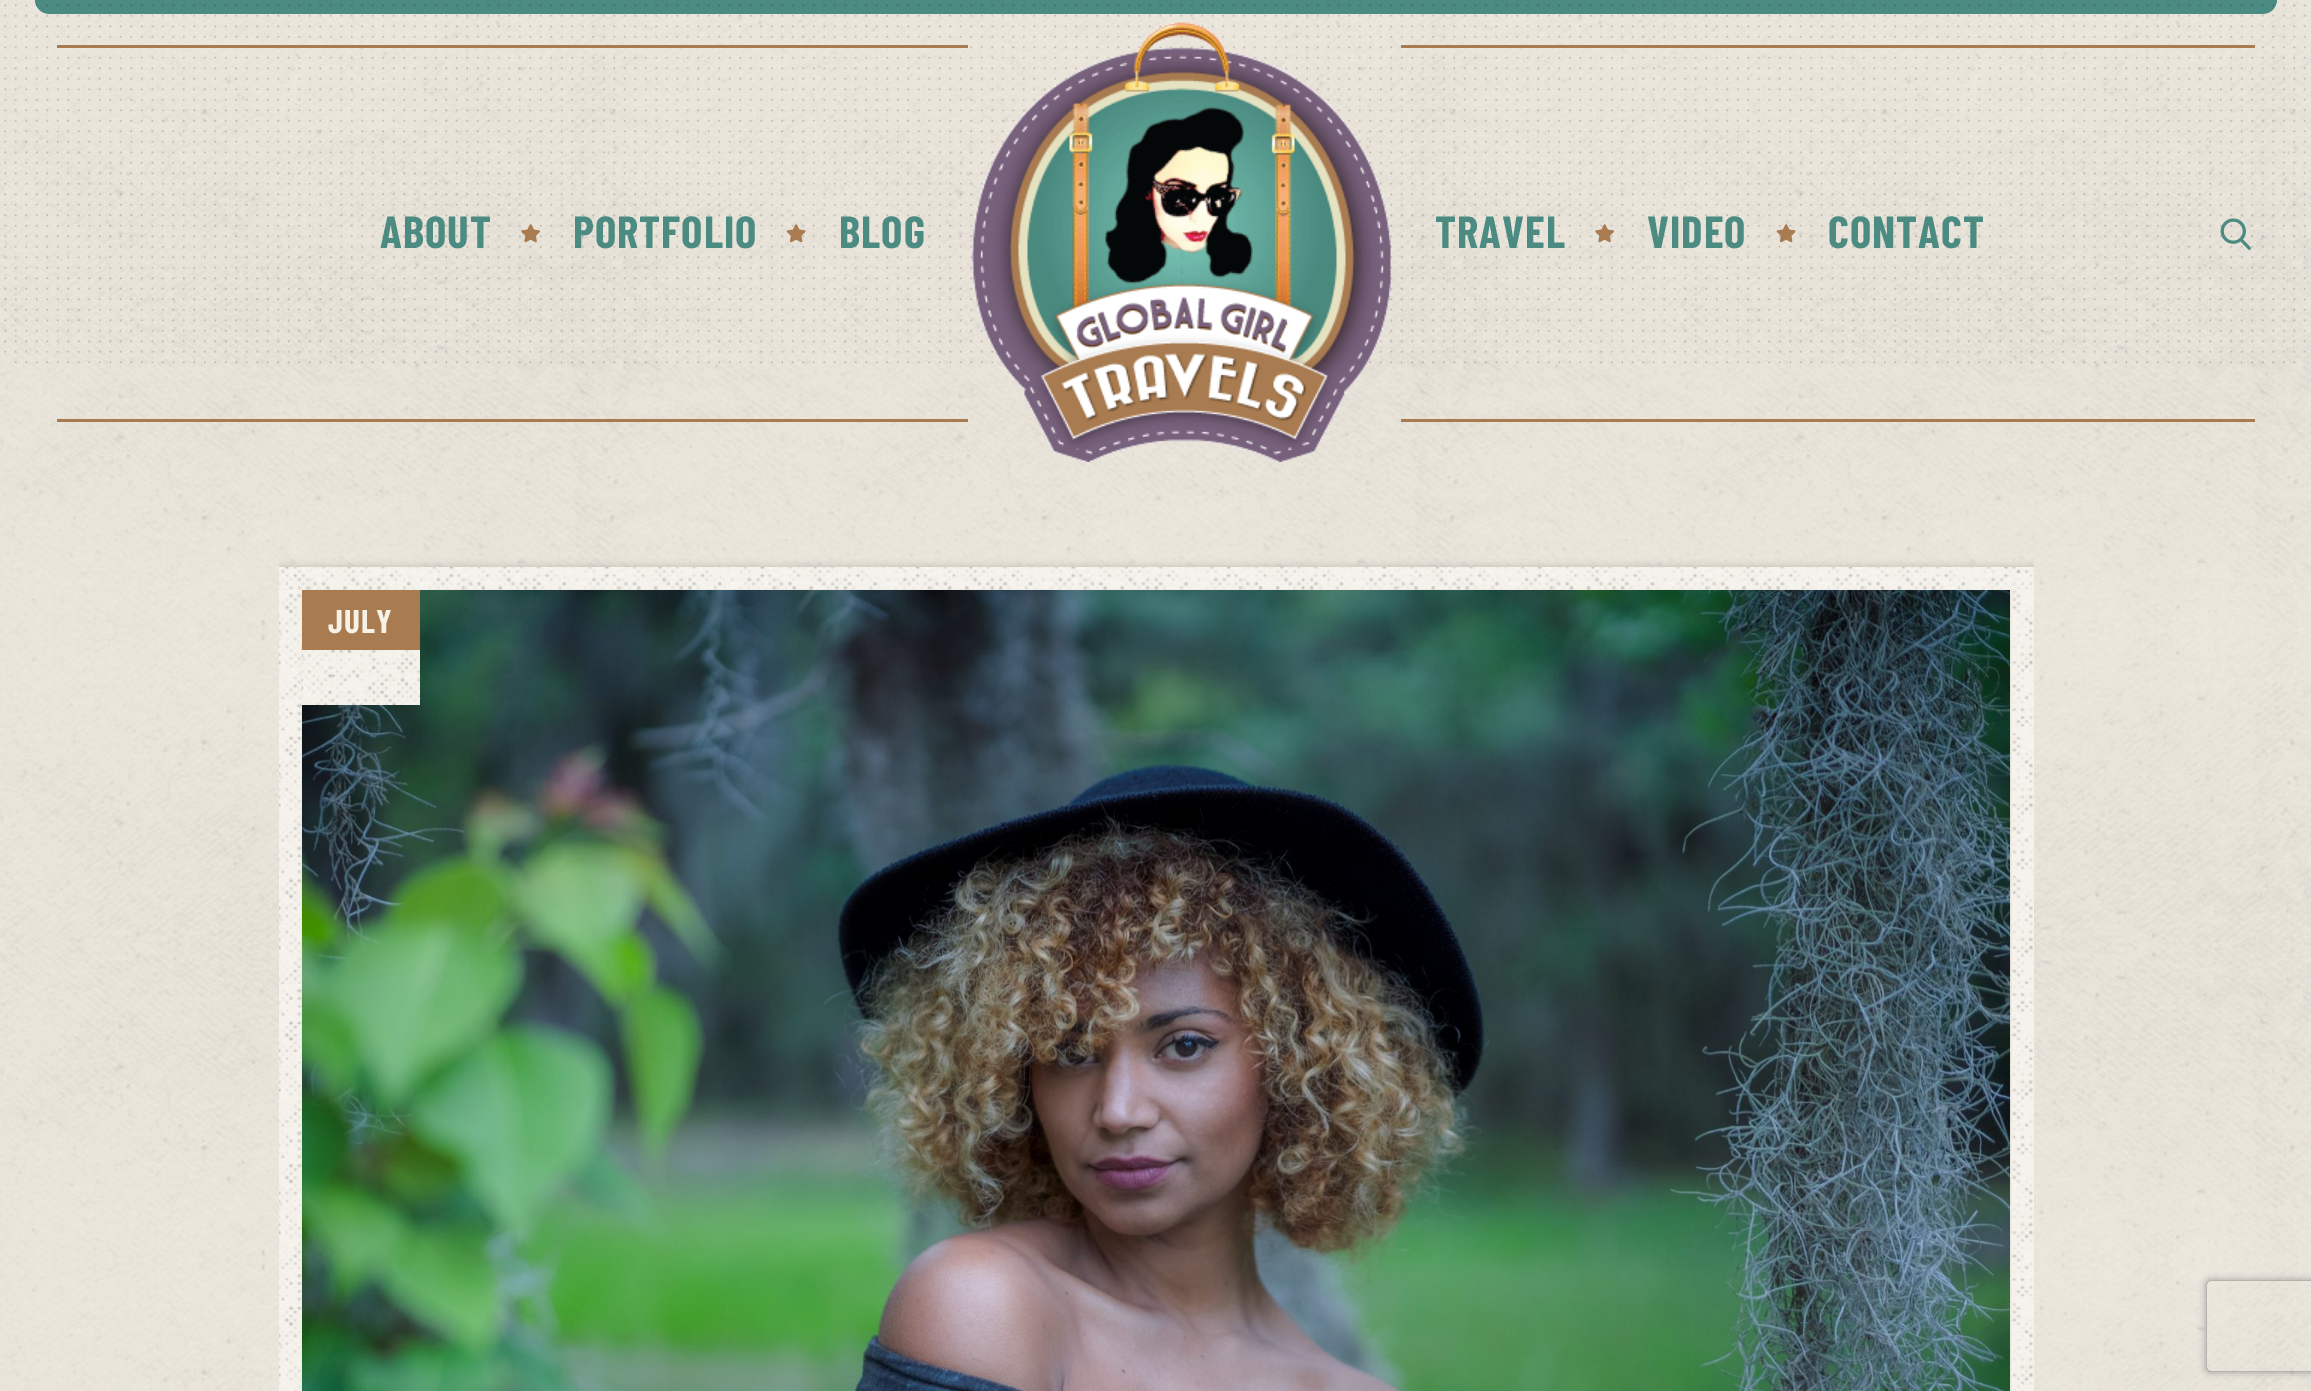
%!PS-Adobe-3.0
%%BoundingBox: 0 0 2311 1391
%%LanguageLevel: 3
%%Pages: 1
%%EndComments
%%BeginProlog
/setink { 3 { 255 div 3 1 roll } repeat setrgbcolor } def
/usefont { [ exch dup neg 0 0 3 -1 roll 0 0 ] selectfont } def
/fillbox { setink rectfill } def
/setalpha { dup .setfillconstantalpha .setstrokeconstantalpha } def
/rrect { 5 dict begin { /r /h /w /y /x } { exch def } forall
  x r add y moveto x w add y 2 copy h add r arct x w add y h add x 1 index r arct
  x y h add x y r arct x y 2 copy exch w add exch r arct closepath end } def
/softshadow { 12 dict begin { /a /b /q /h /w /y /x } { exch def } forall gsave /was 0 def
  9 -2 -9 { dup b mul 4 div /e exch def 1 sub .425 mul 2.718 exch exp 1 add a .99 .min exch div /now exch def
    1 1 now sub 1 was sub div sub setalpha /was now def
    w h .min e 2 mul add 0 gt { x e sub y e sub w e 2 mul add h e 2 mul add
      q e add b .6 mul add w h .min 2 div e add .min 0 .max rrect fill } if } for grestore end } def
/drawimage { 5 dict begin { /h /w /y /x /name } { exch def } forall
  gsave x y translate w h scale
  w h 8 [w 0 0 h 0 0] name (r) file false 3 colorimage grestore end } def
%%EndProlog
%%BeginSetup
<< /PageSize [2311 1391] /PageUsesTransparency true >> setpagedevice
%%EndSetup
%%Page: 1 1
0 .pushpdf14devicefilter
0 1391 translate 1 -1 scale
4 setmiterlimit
0 0 2311 1391 247 242 232 fillbox
(assets/img1.rgb) 0 0 2311 1391 drawimage
75 139 129 setink
35 0 moveto 2277 0 lineto 2277 7.5 2270.5 14 2263 14 curveto 49 14 lineto 41.5 14 35 7.5 35 0 curveto closepath fill
(assets/img2.rgb) 4 4 2302 360 drawimage
57 45 911 3 169 123 80 fillbox
57 419 911 3 169 123 80 fillbox
1401 45 854 3 169 123 80 fillbox
1401 419 854 3 169 123 80 fillbox
/BarlowCondensed-Bold 45 usefont
75 139 129 setink
380 248 moveto 1 0 (ABOUT) ashow
(assets/img3.rgb) 521 224 19 19 drawimage
573 248 moveto 1 0 (PORTFOLIO) ashow
(assets/img4.rgb) 786 224 20 19 drawimage
839 248 moveto 1 0 (BLOG) ashow
(assets/img5.rgb) 972 22 419 440 drawimage
1435 248 moveto 1 0 (TRAVEL) ashow
(assets/img6.rgb) 1595 224 19 19 drawimage
1647 248 moveto 1 0 (VIDEO) ashow
(assets/img7.rgb) 1776 224 20 19 drawimage
1828 248 moveto 1 0 (CONTACT) ashow
(assets/img8.rgb) 2220 218 31 32 drawimage
gsave
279 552 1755 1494 rectclip
0 0 0 setink
278 566 1758 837 0 4 0.15 softshadow
grestore
(assets/img9.rgb) 279 567 1755 824 drawimage
(assets/img10.rgb) 302 590 1708 801 drawimage
(assets/img11.rgb) 301 589 119 116 drawimage
302 590 118 60 169 123 80 fillbox
/BarlowCondensed-Bold 33 usefont
247 242 232 setink
328 633 moveto 1 0 (JULY) ashow
gsave
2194 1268 moveto 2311 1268 lineto 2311 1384 lineto 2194 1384 lineto closepath 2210 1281 moveto 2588 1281 lineto 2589.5 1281 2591 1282.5 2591 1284 curveto 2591 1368 lineto 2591 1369.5 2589.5 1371 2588 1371 curveto 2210 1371 lineto 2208.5 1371 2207 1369.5 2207 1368 curveto 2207 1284 lineto 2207 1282.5 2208.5 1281 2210 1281 curveto closepath eoclip newpath
128 128 128 setink
2207 1281 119 90 3 4 1 softshadow
grestore
.poppdf14devicefilter showpage
%%EOF
